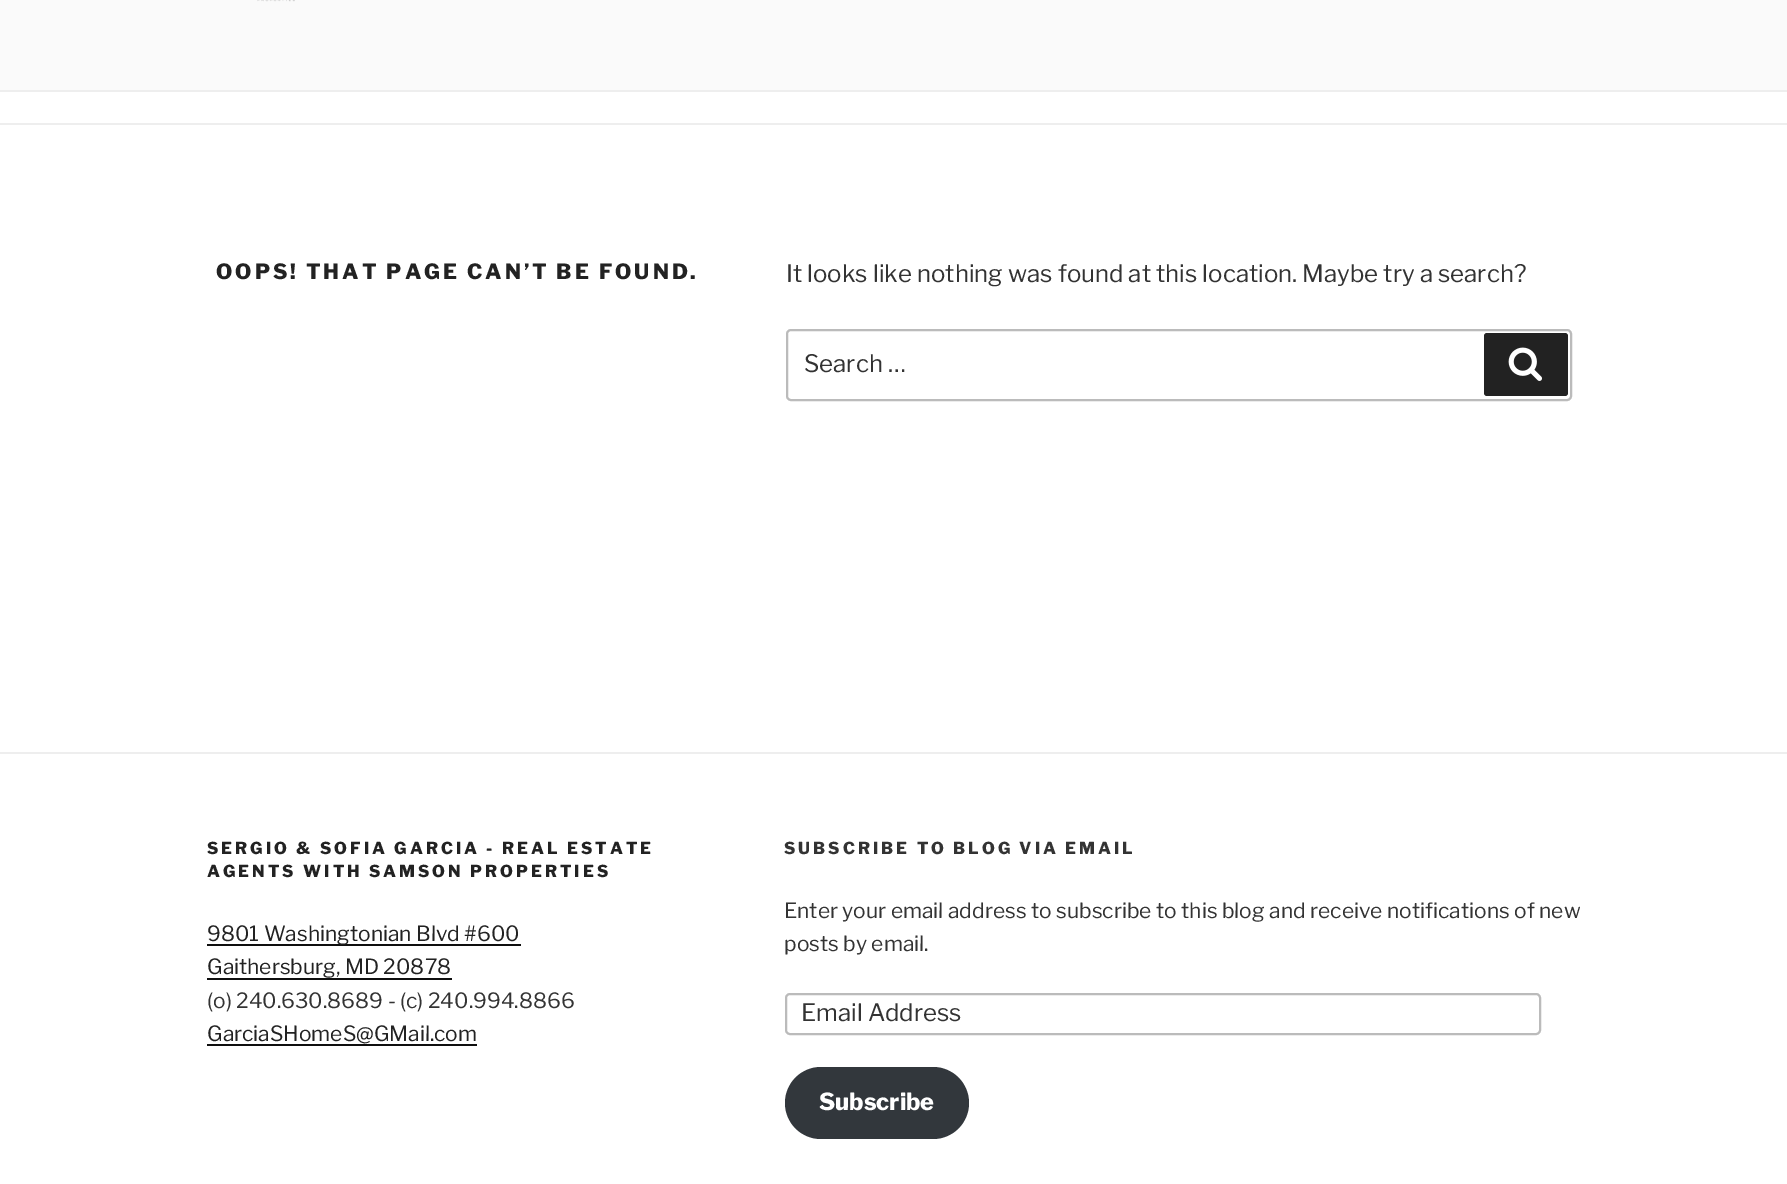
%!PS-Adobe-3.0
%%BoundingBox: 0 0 1787 1184
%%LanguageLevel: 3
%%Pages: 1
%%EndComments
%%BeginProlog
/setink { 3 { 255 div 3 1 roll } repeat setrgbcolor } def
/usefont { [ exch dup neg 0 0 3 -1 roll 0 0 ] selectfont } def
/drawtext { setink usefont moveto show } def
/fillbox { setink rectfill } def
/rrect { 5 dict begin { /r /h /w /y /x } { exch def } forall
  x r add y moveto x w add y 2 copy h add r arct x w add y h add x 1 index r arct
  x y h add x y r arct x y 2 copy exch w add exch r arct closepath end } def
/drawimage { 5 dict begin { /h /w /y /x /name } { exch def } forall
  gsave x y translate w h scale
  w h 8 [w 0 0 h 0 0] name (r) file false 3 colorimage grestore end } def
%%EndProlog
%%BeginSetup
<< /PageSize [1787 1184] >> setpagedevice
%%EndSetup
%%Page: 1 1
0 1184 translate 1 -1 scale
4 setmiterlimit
0 0 1787 1184 255 255 255 fillbox
0 0 1787 90 250 250 250 fillbox
(assets/img1.rgb) 257 0 38 2 drawimage
0 90 1787 2 238 238 238 fillbox
0 123 1787 2 238 238 238 fillbox
/LibreFranklin-Thin 21 usefont
34 34 34 setink
216 279 moveto 2.95 0 (OOPS! THAT PAGE CAN’T BE FOUND.) ashow
(It looks like nothing was found at this location. Maybe try a search?) 786 282 /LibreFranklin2-Thin 24 51 51 51 drawtext
187 187 187 setink
2 setlinewidth
787 330 784 70 4 rrect stroke
(Search …) 804 372 /LibreFranklin2-Thin 24 51 51 51 drawtext
34 34 34 setink
1484 333 84 63 3 rrect fill
(assets/img2.rgb) 1508 347 34 34 drawimage
0 752 1787 2 238 238 238 fillbox
/LibreFranklin-Thin 16.5 usefont
34 34 34 setink
207 854 moveto 3 0 (SERGIO & SOFIA GARCIA - REAL ESTATE) ashow
207 877 moveto 3 0 (AGENTS WITH SAMSON PROPERTIES) ashow
207 944 314 2 15 15 15 fillbox
(9801 Washingtonian Blvd #600) 207 941 /LibreFranklin2-Thin 21 34 34 34 drawtext
(Gaithersburg, MD 20878) 207 974 /LibreFranklin2-Thin 21 34 34 34 drawtext
207 978 245 2 15 15 15 fillbox
(\(o\) 240.630.8689 - \(c\) 240.994.8866) 207 1008 /LibreFranklin2-Thin 21 51 51 51 drawtext
(GarciaSHomeS@GMail.com) 207 1041 /LibreFranklin2-Thin 21 34 34 34 drawtext
207 1044 270 2 15 15 15 fillbox
/LibreFranklin-Thin 16.5 usefont
51 51 51 setink
784 854 moveto 3 0 (SUBSCRIBE TO BLOG VIA EMAIL) ashow
(Enter your email address to subscribe to this blog and receive notifications of new) 784 918 /LibreFranklin2-Thin 21 51 51 51 drawtext
(posts by email.) 784 951 /LibreFranklin2-Thin 21 51 51 51 drawtext
187 187 187 setink
786 994 754 40 4 rrect stroke
(Email Address) 801 1021 /LibreFranklin2-Thin 24 51 51 51 drawtext
50 55 60 setink
785 1067 184 72 36 rrect fill
(Subscribe) 819 1110 /LibreFranklin-Thin 23.5 255 255 255 drawtext
showpage
%%EOF
